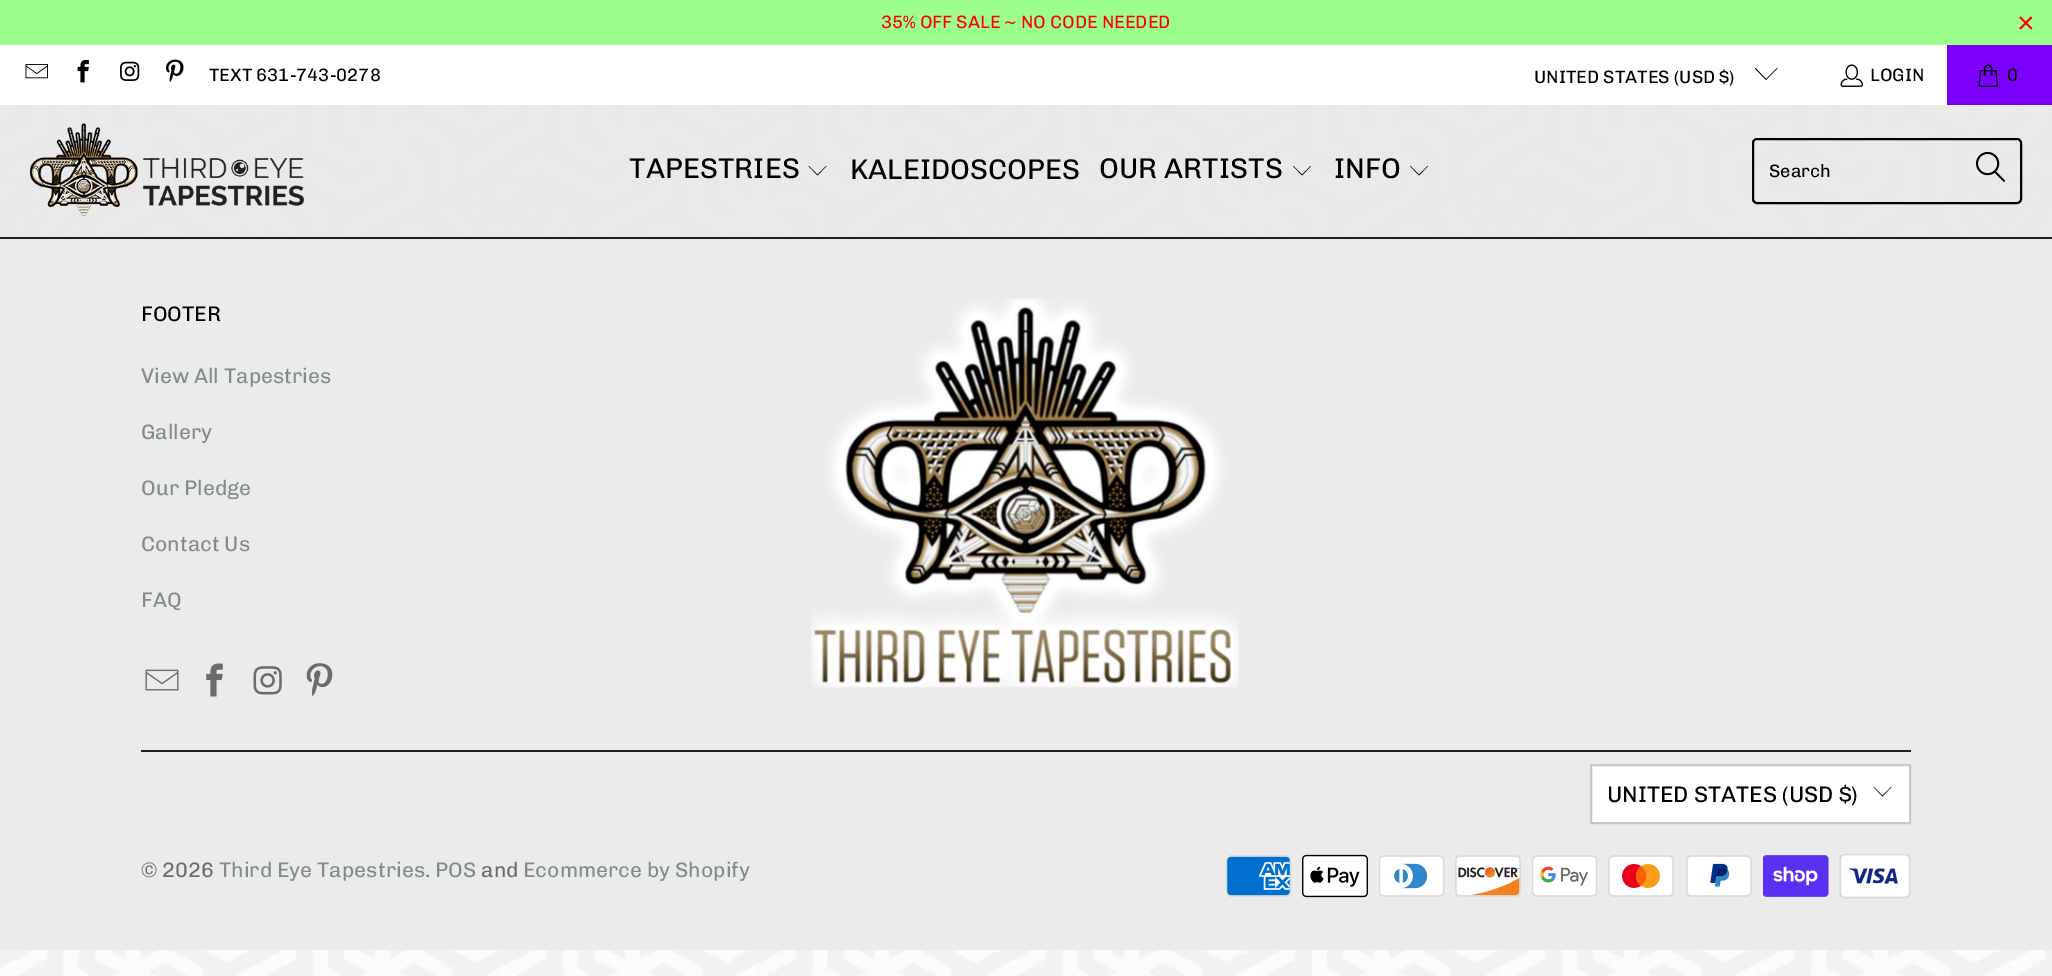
%!PS-Adobe-3.0
%%BoundingBox: 0 0 2052 976
%%LanguageLevel: 3
%%Pages: 1
%%EndComments
%%BeginProlog
/setink { 3 { 255 div 3 1 roll } repeat setrgbcolor } def
/usefont { [ exch dup neg 0 0 3 -1 roll 0 0 ] selectfont } def
/drawtext { setink usefont moveto show } def
/fillbox { setink rectfill } def
/setalpha { dup .setfillconstantalpha .setstrokeconstantalpha } def
/rrect { 5 dict begin { /r /h /w /y /x } { exch def } forall
  x r add y moveto x w add y 2 copy h add r arct x w add y h add x 1 index r arct
  x y h add x y r arct x y 2 copy exch w add exch r arct closepath end } def
/drawimage { 5 dict begin { /h /w /y /x /name } { exch def } forall
  gsave x y translate w h scale
  w h 8 [w 0 0 h 0 0] name (r) file false 3 colorimage grestore end } def
%%EndProlog
%%BeginSetup
<< /PageSize [2052 976] /PageUsesTransparency true >> setpagedevice
%%EndSetup
%%Page: 1 1
0 .pushpdf14devicefilter
0 976 translate 1 -1 scale
4 setmiterlimit
0 0 2052 976 255 255 255 fillbox
(assets/img1.rgb) 0 105 2052 871 drawimage
0 0 2052 45 156 255 141 fillbox
(35% OFF SALE ~ NO CODE NEEDED) 881 28 /Chivo-Regular 18 255 0 0 drawtext
(×) 2017 33 /LiberationSans-Regular 30 255 0 0 drawtext
(assets/img2.rgb) 25 64 23 15 drawimage
(assets/img3.rgb) 77 59 12 24 drawimage
(assets/img4.rgb) 120 61 20 20 drawimage
(assets/img5.rgb) 166 59 18 23 drawimage
(TEXT 631-743-0278) 209 81 /Chivo-Regular 18 0 0 0 drawtext
(UNITED STATES \(USD $\)) 1534 83 /Chivo-Regular 18 0 0 0 drawtext
1766 80 moveto 1755 68.5 lineto 1755.5 68 lineto 1766 79 lineto 1777 68 lineto 1777.5 68.5 lineto closepath fill
(assets/img6.rgb) 1840 64 23 23 drawimage
(LOGIN) 1870 81 /Chivo-Regular 18 0 0 0 drawtext
1947 45 105 60 125 0 255 fillbox
(assets/img7.rgb) 1978 64 21 23 drawimage
(0) 2007 81 /Chivo-Regular 18 0 0 0 drawtext
0.9 setalpha
0 105 2052 132 232 232 232 fillbox
1 setalpha
(assets/img8.rgb) 30 123 274 93 drawimage
(TAPESTRIES) 629 178 /Chivo-Regular 28.5 0 0 0 drawtext
817.5 175.5 moveto 808.5 166 lineto 809 166 lineto 817.5 174.5 lineto 826 166 lineto 826.5 166 lineto closepath fill
(KALEIDOSCOPES) 850 179 /Chivo-Regular 28.5 0 0 0 drawtext
(OUR ARTISTS) 1099 178 /Chivo-Regular 28.5 0 0 0 drawtext
1302 175.5 moveto 1293 166 lineto 1293.5 166 lineto 1302 174.5 lineto 1310.5 166 lineto 1311 166 lineto closepath fill
(INFO) 1334 178 /Chivo-Regular 28.5 0 0 0 drawtext
1419 175.5 moveto 1410 166 lineto 1410.5 166 lineto 1419 174.5 lineto 1427.5 166 lineto 1428 166 lineto closepath fill
2 setlinewidth
1753 139 268 64 4 rrect stroke
(Search) 1769 177 /Chivo-Regular 18 0 0 0 drawtext
(assets/img9.rgb) 1975 151 30 31 drawimage
0 239 2052 711 235 235 235 fillbox
0 237 2052 2 27 31 35 fillbox
(FOOTER) 141 321 /Chivo-Regular 21 0 0 0 drawtext
(View All Tapestries) 141 383 /Chivo-Regular 21 127 140 141 drawtext
(Gallery) 141 439 /Chivo-Regular 21 127 140 141 drawtext
(Our Pledge) 141 495 /Chivo-Regular 21 127 140 141 drawtext
(Contact Us) 141 551 /Chivo-Regular 21 127 140 141 drawtext
(FAQ) 141 607 /Chivo-Regular 21 127 140 141 drawtext
(assets/img10.rgb) 145 669 34 22 drawimage
(assets/img11.rgb) 206 663 17 34 drawimage
(assets/img12.rgb) 253 666 29 29 drawimage
(assets/img13.rgb) 306 663 27 33 drawimage
(assets/img14.rgb) 811 298 428 390 drawimage
141 750 1770 2 27 31 35 fillbox
255 255 255 setink
1591 765 moveto 1910 765 lineto 1910 823 lineto 1591 823 lineto closepath gsave fill grestore
200 200 200 setink
stroke
(UNITED STATES \(USD $\)) 1607 802 /Chivo-Regular 22.5 0 0 0 drawtext
1882.5 796.5 moveto 1873.5 787 lineto 1874 787 lineto 1882.5 795.5 lineto 1891 787 lineto 1891.5 787 lineto closepath fill
(© 2026) 141 877 /Chivo-Regular 21 107 107 107 drawtext
(Third Eye Tapestries) 219 877 /Chivo-Regular 21 127 140 141 drawtext
(.) 425 877 /Chivo-Regular 21 107 107 107 drawtext
(POS) 435 877 /Chivo-Regular 21 127 140 141 drawtext
(and) 481 877 /Chivo-Regular 21 107 107 107 drawtext
(Ecommerce by Shopify) 523 877 /Chivo-Regular 21 127 140 141 drawtext
(assets/img15.rgb) 1226 855 66 42 drawimage
(assets/img16.rgb) 1302 854 66 44 drawimage
(assets/img17.rgb) 1379 855 66 42 drawimage
(assets/img18.rgb) 1455 855 66 42 drawimage
(assets/img19.rgb) 1532 855 66 42 drawimage
(assets/img20.rgb) 1608 855 66 42 drawimage
(assets/img21.rgb) 1686 855 66 42 drawimage
(assets/img22.rgb) 1763 855 66 42 drawimage
(assets/img23.rgb) 1839 854 72 45 drawimage
.poppdf14devicefilter showpage
%%EOF
